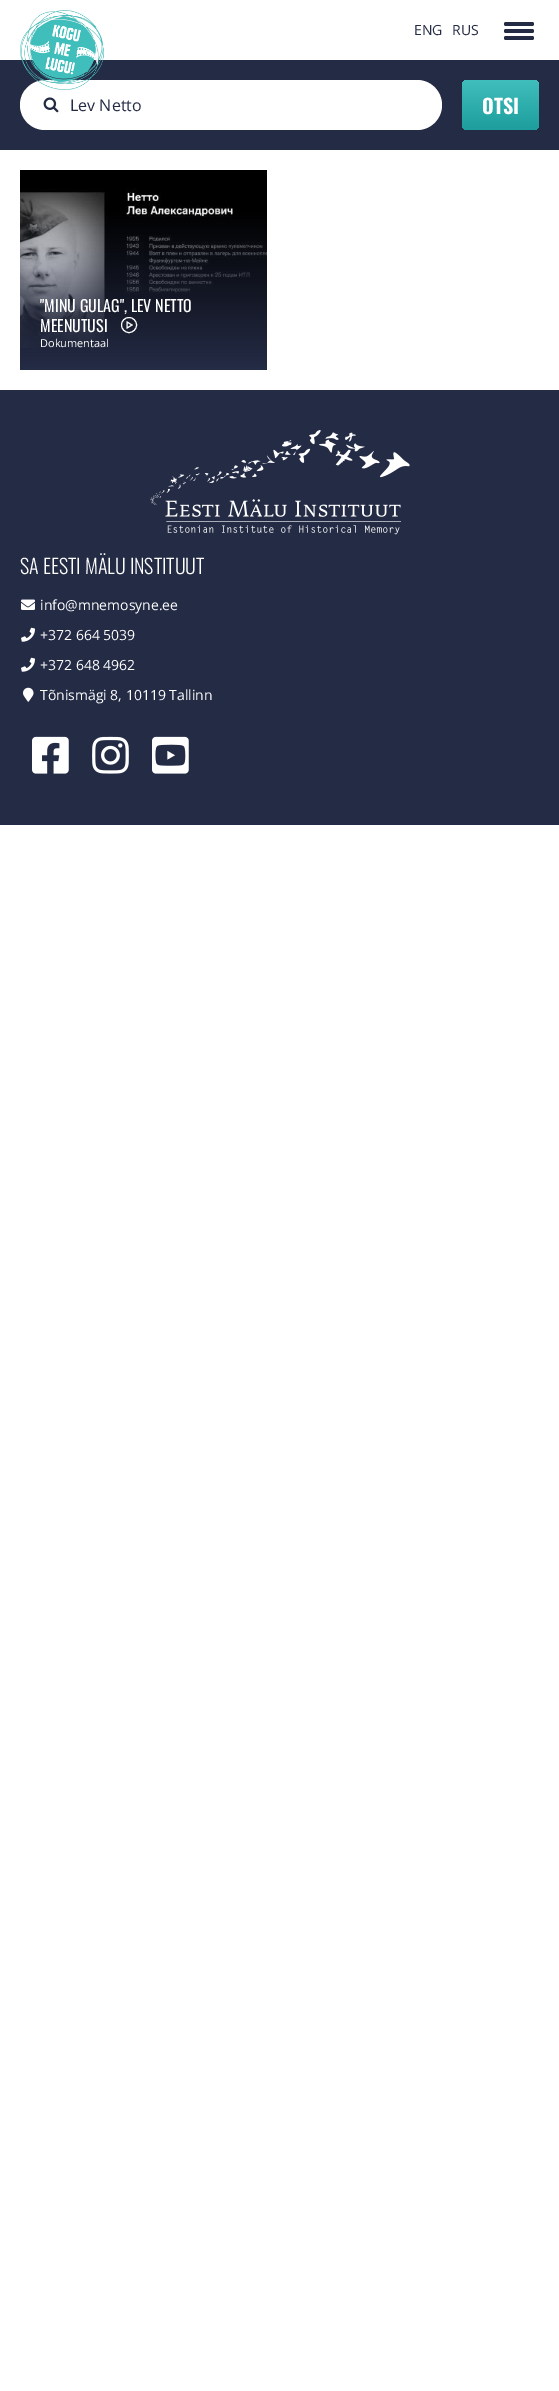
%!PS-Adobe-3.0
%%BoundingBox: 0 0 559 2391
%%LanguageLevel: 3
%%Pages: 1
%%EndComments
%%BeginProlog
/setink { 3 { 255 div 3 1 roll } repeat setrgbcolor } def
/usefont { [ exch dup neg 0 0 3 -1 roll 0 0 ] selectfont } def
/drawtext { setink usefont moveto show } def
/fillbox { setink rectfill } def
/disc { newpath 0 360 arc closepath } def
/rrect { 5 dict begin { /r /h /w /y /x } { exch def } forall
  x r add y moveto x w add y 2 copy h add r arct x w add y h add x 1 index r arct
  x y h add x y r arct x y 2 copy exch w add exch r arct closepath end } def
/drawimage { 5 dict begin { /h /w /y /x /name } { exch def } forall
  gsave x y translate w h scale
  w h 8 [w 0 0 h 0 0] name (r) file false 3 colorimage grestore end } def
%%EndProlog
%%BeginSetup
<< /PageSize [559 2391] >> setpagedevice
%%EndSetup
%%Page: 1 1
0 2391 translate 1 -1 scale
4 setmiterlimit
0 0 559 2391 255 255 255 fillbox
0 60 559 90 36 43 69 fillbox
255 255 255 setink
20 80 422 50 25 rrect fill
(assets/img1.rgb) 20 10 84 80 drawimage
(ENG) 414 35 /OpenSans-Regular 14 36 43 69 drawtext
(RUS) 452 35 /OpenSans-Regular 14 36 43 69 drawtext
504 36 30 4 2 rrect fill
504 29 30 4 2 rrect fill
504 22 30 4 2 rrect fill
(assets/img2.rgb) 43 97 16 16 drawimage
(Lev Netto) 70 111 /OpenSans-Regular 16 36 43 69 drawtext
gsave 462 80 77 50 6 rrect clip newpath
<< /ShadingType 2 /ColorSpace /DeviceRGB /Coords [501 80 501 130] /Extend [true true] /Function << /FunctionType 2 /Domain [0 1] /C0 [0.247 0.745 0.737] /C1 [0.114 0.62 0.612] /N 1 >> >> shfill grestore
(OTSI) 482 114 /Oswald-Bold 20 255 255 255 drawtext
(assets/img3.rgb) 20 170 247 200 drawimage
("MINU GULAG", LEV NETTO) 40 312 /Oswald-Regular 16 255 255 255 drawtext
(MEENUTUSI) 40 332 /Oswald-Regular 16 255 255 255 drawtext
129 325 7.5 disc stroke
127 322 moveto 127 328 lineto 132 325 lineto closepath stroke
(Dokumentaal) 40 347 /OpenSans-Regular 11 255 255 255 drawtext
0 390 559 435 36 43 69 fillbox
(assets/img4.rgb) 150 430 260 105 drawimage
(SA EESTI MÄLU INSTITUUT) 20 574 /Oswald-Light 20 255 255 255 drawtext
(assets/img5.rgb) 21 599 14 11 drawimage
(info@mnemosyne.ee) 40 610 /OpenSans-Regular 14 255 255 255 drawtext
(assets/img6.rgb) 21 627 14 15 drawimage
(+372 664 5039) 40 640 /OpenSans-Regular 14 255 255 255 drawtext
(assets/img6.rgb) 21 657 14 15 drawimage
(+372 648 4962) 40 670 /OpenSans-Regular 14 255 255 255 drawtext
(assets/img7.rgb) 23 687 11 15 drawimage
(Tõnismägi 8, 10119 Tallinn) 40 700 /OpenSans-Regular 14 255 255 255 drawtext
(assets/img8.rgb) 32 736 37 38 drawimage
(assets/img9.rgb) 92 736 37 38 drawimage
(assets/img10.rgb) 152 736 37 38 drawimage
showpage
%%EOF
